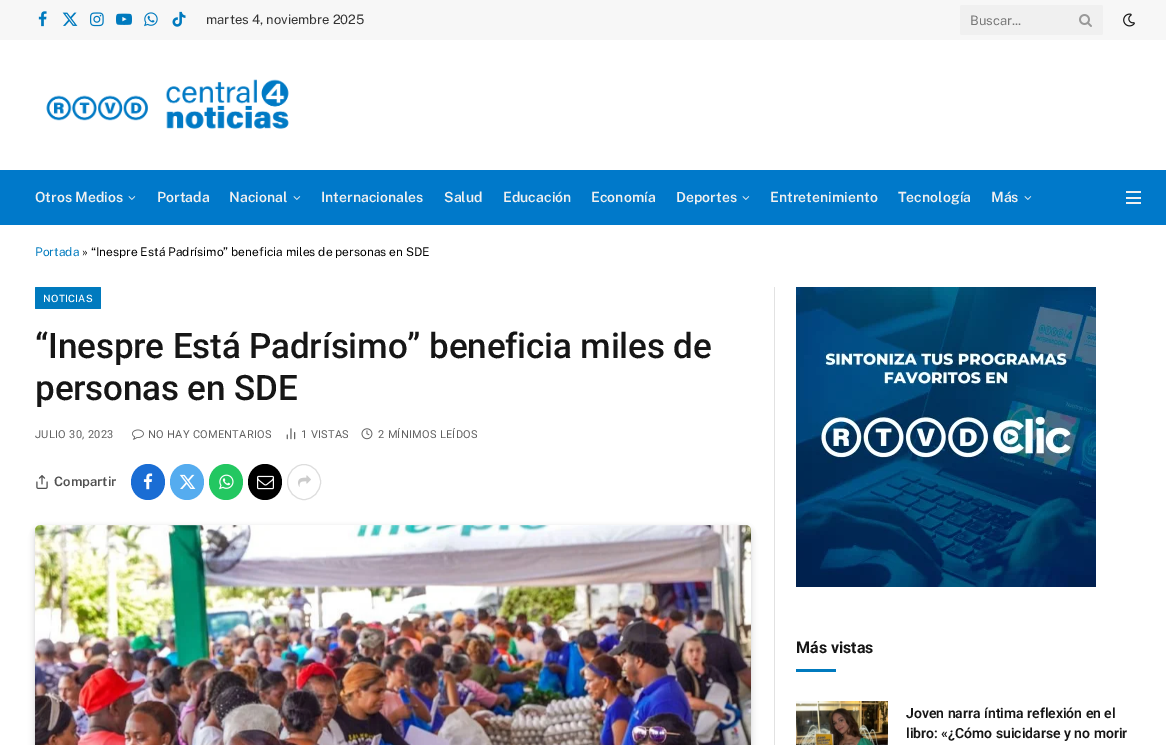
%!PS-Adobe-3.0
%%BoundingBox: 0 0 1166 745
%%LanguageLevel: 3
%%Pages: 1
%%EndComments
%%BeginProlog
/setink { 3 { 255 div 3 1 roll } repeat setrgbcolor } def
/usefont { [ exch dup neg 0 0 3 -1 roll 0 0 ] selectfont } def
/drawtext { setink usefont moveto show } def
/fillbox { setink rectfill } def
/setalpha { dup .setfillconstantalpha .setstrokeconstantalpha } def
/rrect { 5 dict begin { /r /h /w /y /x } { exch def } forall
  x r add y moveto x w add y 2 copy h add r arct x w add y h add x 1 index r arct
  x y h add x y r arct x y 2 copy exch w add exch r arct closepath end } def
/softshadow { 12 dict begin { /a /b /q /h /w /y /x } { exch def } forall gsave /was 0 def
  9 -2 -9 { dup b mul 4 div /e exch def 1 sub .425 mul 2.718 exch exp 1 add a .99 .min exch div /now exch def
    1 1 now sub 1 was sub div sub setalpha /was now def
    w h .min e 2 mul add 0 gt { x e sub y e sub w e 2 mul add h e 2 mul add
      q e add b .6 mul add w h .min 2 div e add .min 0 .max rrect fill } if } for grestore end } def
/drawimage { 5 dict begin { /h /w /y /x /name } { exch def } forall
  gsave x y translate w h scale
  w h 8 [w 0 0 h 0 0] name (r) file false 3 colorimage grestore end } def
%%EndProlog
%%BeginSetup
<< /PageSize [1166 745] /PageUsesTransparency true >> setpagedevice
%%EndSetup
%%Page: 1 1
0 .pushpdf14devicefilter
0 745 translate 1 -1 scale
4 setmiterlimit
0 0 1166 745 255 255 255 fillbox
0 0 1166 40 247 247 247 fillbox
(assets/img1.rgb) 38 11 9 16 drawimage
(assets/img2.rgb) 62 12 16 14 drawimage
(assets/img3.rgb) 90 12 14 15 drawimage
(assets/img4.rgb) 116 13 16 12 drawimage
(assets/img5.rgb) 144 12 14 15 drawimage
(assets/img6.rgb) 172 11 14 16 drawimage
(martes 4, noviembre 2025) 206 24 /PublicSans-Regular 13 51 51 51 drawtext
240 240 240 setink
960 5 143 30 2 rrect fill
(Buscar...) 970 25 /PublicSans-Regular 13 119 119 119 drawtext
(assets/img7.rgb) 1079 14 13 13 drawimage
(assets/img8.rgb) 1123 13 12 14 drawimage
(assets/img9.rgb) 46 79 243 50 drawimage
0 170 1166 55 0 121 202 fillbox
(Otros Medios) 35 202 /PublicSans-SemiBold 14 240 240 240 drawtext
(assets/img10.rgb) 128 196 8 4 drawimage
(Portada) 157 202 /PublicSans-SemiBold 14 240 240 240 drawtext
(Nacional) 229 202 /PublicSans-SemiBold 14 240 240 240 drawtext
(assets/img10.rgb) 293 196 8 4 drawimage
(Internacionales) 321 202 /PublicSans-SemiBold 14 240 240 240 drawtext
(Salud) 444 202 /PublicSans-SemiBold 14 240 240 240 drawtext
(Educación) 503 202 /PublicSans-SemiBold 14 240 240 240 drawtext
(Economía) 591 202 /PublicSans-SemiBold 14 240 240 240 drawtext
(Deportes) 676 202 /PublicSans-SemiBold 14 240 240 240 drawtext
(assets/img10.rgb) 742 196 8 4 drawimage
(Entretenimiento) 770 202 /PublicSans-SemiBold 14 240 240 240 drawtext
(Tecnología) 898 202 /PublicSans-SemiBold 14 240 240 240 drawtext
(Más) 991 202 /PublicSans-SemiBold 14 240 240 240 drawtext
(assets/img10.rgb) 1024 196 8 4 drawimage
1126 202 15 2 240 240 240 fillbox
1126 191 15 2 240 240 240 fillbox
1126 197 15 2 240 240 240 fillbox
(Portada) 35 256 /PublicSans-Regular 12 0 122 190 drawtext
(» “Inespre Está Padrísimo” beneficia miles de personas en SDE) 82 256 /PublicSans-Regular 12 0 0 0 drawtext
0 122 190 setink
35 287 66 22 1 rrect fill
/PublicSans-Medium 10 usefont
255 255 255 setink
43 302 moveto 0.25 0 (NOTICIAS) ashow
/Roboto-Medium 35 usefont
22 22 22 setink
35 358 moveto -0.15 0 (“Inespre Está Padrísimo” beneficia miles de) ashow
35 400 moveto -0.15 0 (personas en SDE) ashow
/Roboto-Regular 11 usefont
96 96 96 setink
35 438 moveto 0.3 0 (JULIO 30, 2023) ashow
(assets/img11.rgb) 132 429 12 11 drawimage
148 438 moveto 0.3 0 (NO HAY COMENTARIOS) ashow
(assets/img12.rgb) 286 428 10 12 drawimage
301 438 moveto 0.3 0 (1 VISTAS) ashow
(assets/img13.rgb) 361 428 12 12 drawimage
378 438 moveto 0.3 0 (2 MÍNIMOS LEÍDOS) ashow
(assets/img14.rgb) 36 475 12 14 drawimage
(Compartir) 54 486 /PublicSans-SemiBold 13 80 80 80 drawtext
26 109 212 setink
148 464 moveto 157.5 464 165 472 165 482 curveto 165 492 157.5 500 148 500 curveto 138.5 500 131 492 131 482 curveto 131 472 138.5 464 148 464 curveto closepath fill
(assets/img15.rgb) 143 473 10 17 drawimage
85 172 239 setink
187 464 moveto 196.5 464 204 472 204 482 curveto 204 492 196.5 500 187 500 curveto 177.5 500 170 492 170 482 curveto 170 472 177.5 464 187 464 curveto closepath fill
(assets/img16.rgb) 179 474 17 15 drawimage
35 199 97 setink
226 464 moveto 235.5 464 243 472 243 482 curveto 243 492 235.5 500 226 500 curveto 216.5 500 209 492 209 482 curveto 209 472 216.5 464 226 464 curveto closepath fill
(assets/img17.rgb) 219 474 15 16 drawimage
0 0 0 setink
265 464 moveto 274.5 464 282 472 282 482 curveto 282 492 274.5 500 265 500 curveto 255.5 500 248 492 248 482 curveto 248 472 255.5 464 265 464 curveto closepath fill
(assets/img18.rgb) 257 475 17 15 drawimage
221 221 221 setink
304 464.5 moveto 313 464.5 320.5 472.5 320.5 482 curveto 320.5 491.5 313 499.5 304 499.5 curveto 295 499.5 287.5 491.5 287.5 482 curveto 287.5 472.5 295 464.5 304 464.5 curveto closepath stroke
(assets/img19.rgb) 298 475 13 12 drawimage
7 10 25 setink
41 537 704 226 0 6 0.2 softshadow
36 528 714 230 4 3 0.2 softshadow
(assets/img20.rgb) 35 525 716 220 drawimage
774 287 1 458 226 226 226 fillbox
(assets/img21.rgb) 796 287 300 300 drawimage
(Más vistas) 796 653 /Roboto-Bold 16 22 22 22 drawtext
796 669 40 3 0 122 190 fillbox
(assets/img22.rgb) 796 701 92 44 drawimage
(Joven narra íntima reflexión en el) 906 718 /Roboto-SemiBold 14 22 22 22 drawtext
(libro: «¿Cómo suicidarse y no morir) 906 738 /Roboto-SemiBold 14 22 22 22 drawtext
.poppdf14devicefilter showpage
%%EOF
